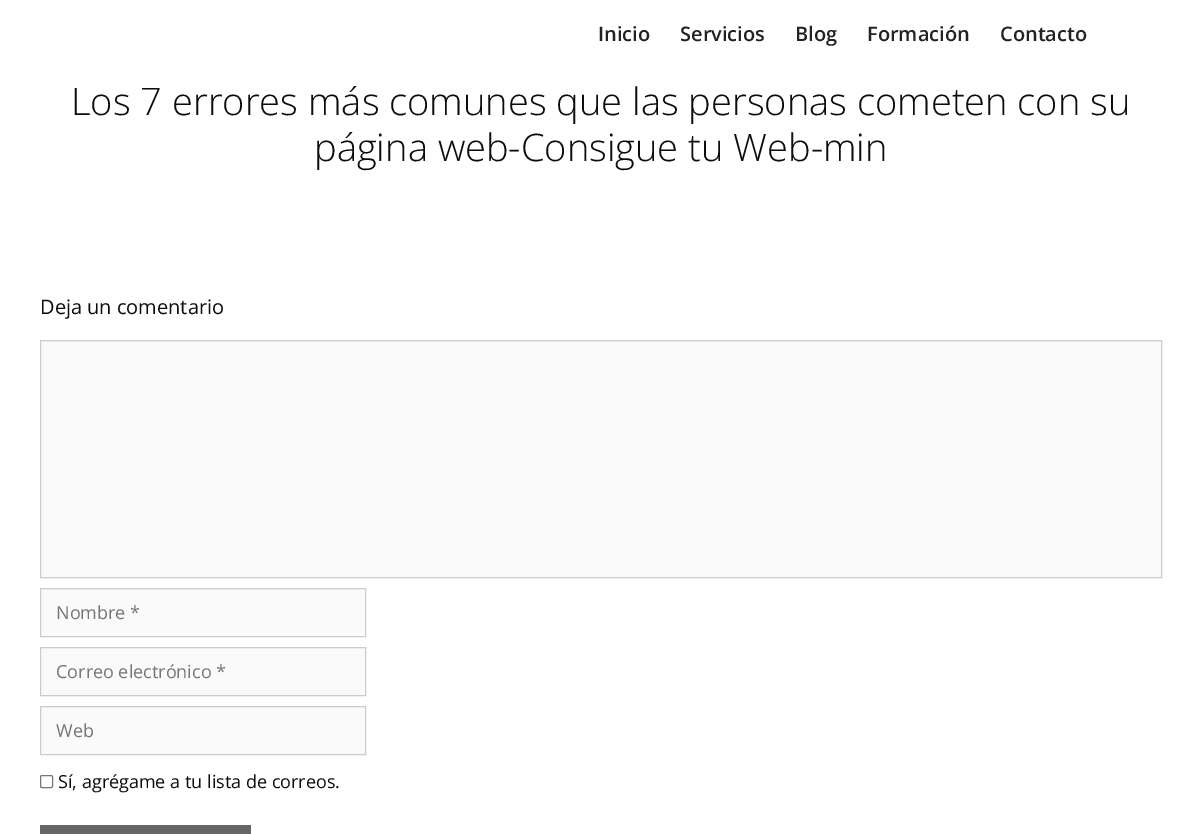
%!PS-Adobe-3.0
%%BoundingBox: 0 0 1202 834
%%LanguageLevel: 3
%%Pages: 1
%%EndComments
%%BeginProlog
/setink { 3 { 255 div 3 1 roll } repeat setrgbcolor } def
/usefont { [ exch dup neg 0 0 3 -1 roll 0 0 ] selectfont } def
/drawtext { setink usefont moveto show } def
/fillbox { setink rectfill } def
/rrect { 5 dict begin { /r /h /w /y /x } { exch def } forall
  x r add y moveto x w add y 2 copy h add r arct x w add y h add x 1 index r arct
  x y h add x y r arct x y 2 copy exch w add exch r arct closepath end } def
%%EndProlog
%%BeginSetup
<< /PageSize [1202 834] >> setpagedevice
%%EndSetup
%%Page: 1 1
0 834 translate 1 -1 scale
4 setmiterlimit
0 0 1202 834 255 255 255 fillbox
(Inicio) 598 41 /OpenSans-SemiBold 20 34 34 34 drawtext
(Servicios) 680 41 /OpenSans-SemiBold 20 34 34 34 drawtext
(Blog) 795 41 /OpenSans-SemiBold 20 34 34 34 drawtext
(Formación) 867 41 /OpenSans-SemiBold 20 34 34 34 drawtext
(Contacto) 1000 41 /OpenSans-SemiBold 20 34 34 34 drawtext
(Los 7 errores más comunes que las personas cometen con su) 71 115 /OpenSans-Light 38 12 12 12 drawtext
(página web-Consigue tu Web-min) 314 161 /OpenSans-Light 38 12 12 12 drawtext
(Deja un comentario) 40 314 /OpenSans-Regular 20 12 12 12 drawtext
250 250 250 setink
40.5 340.5 moveto 1161.5 340.5 lineto 1161.5 577.5 lineto 40.5 577.5 lineto closepath gsave fill grestore
204 204 204 setink
stroke
250 250 250 setink
40.5 588.5 moveto 365.5 588.5 lineto 365.5 636.5 lineto 40.5 636.5 lineto closepath gsave fill grestore
204 204 204 setink
stroke
(Nombre *) 56 619 /OpenSans-Regular 18 117 117 117 drawtext
250 250 250 setink
40.5 647.5 moveto 365.5 647.5 lineto 365.5 695.5 lineto 40.5 695.5 lineto closepath gsave fill grestore
204 204 204 setink
stroke
(Correo electrónico *) 56 678 /OpenSans-Regular 18 117 117 117 drawtext
250 250 250 setink
40.5 706.5 moveto 365.5 706.5 lineto 365.5 754.5 lineto 40.5 754.5 lineto closepath gsave fill grestore
204 204 204 setink
stroke
(Web) 56 737 /OpenSans-Regular 18 117 117 117 drawtext
118 118 118 setink
40.5 775.5 12 12 1.5 rrect stroke
(Sí, agrégame a tu lista de correos.) 58 788 /OpenSans-Regular 18 12 12 12 drawtext
40 825 211 9 102 102 102 fillbox
showpage
%%EOF
